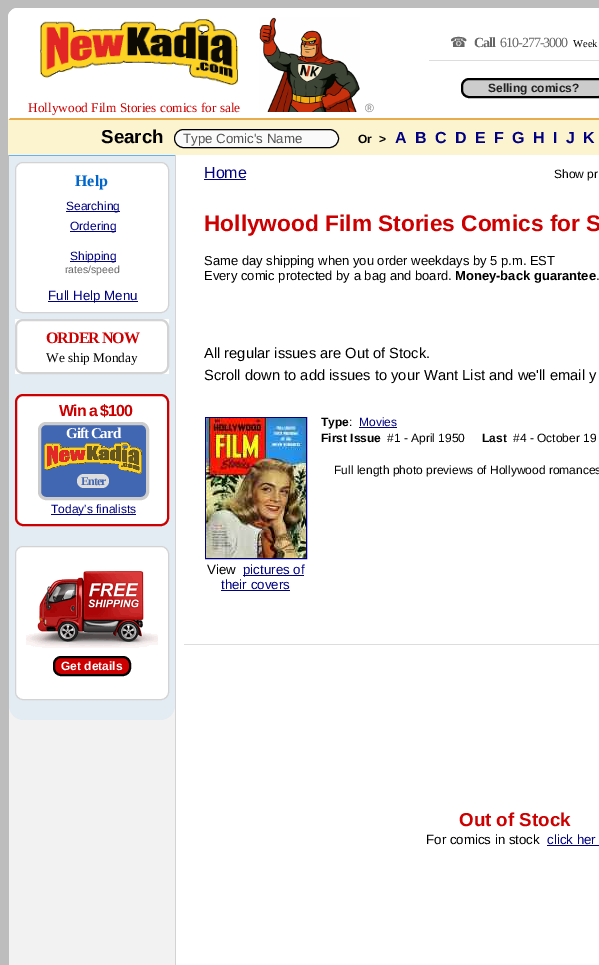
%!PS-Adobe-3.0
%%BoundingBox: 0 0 599 965
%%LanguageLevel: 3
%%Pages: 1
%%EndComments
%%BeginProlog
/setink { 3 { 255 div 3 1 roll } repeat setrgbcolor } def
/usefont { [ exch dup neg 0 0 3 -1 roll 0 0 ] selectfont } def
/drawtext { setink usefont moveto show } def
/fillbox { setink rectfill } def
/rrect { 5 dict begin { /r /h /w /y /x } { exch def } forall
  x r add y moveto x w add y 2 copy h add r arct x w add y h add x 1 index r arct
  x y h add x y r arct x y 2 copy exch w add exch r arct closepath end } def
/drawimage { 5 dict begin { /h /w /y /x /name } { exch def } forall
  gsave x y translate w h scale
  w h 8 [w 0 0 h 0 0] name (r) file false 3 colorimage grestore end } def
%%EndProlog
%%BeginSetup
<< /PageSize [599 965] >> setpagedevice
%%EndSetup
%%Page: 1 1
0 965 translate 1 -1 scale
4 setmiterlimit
0 0 599 965 189 189 189 fillbox
255 255 255 setink
18 8 moveto 599 8 lineto 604.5 8 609 12.5 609 18 curveto 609 120 lineto 8 120 lineto 8 18 lineto 8 12.5 12.5 8 18 8 curveto closepath fill
18 8 moveto 15 8 12 9 11 11 curveto 12 12 lineto 14 11 16 10 18 10 curveto 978 10 lineto 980 10 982 11 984 12 curveto 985 11 lineto 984 9 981 8 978 8 curveto closepath fill
231 173 76 setink
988 120 moveto 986 118 lineto 10 118 lineto 8 120 lineto closepath fill
255 255 255 setink
8 120 moveto 10 118 lineto 10 18 lineto 10 16 11 14 12 12 curveto 11 11 lineto 9 12 8 15 8 18 curveto closepath fill
/DejaVuSans-Regular 14 usefont
102 102 102 setink
450 47 moveto -1 0 (☎) ashow
/LiberationSerif-Bold 14 usefont
474 47 moveto -1 0 (Call) ashow
/LiberationSerif-Regular 14 usefont
500 47 moveto -1 0 (610-277-3000) ashow
(Week) 573 47 /LiberationSerif-Regular 10.5 0 0 0 drawtext
429 60 170 1 221 221 221 fillbox
204 204 204 setink
462 79 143 18 7 rrect gsave fill grestore
0 0 0 setink
2 setlinewidth
stroke
(Selling comics?) 488 92 /LiberationSans-Bold 12 34 34 34 drawtext
(assets/img1.rgb) 40 19 198 66 drawimage
(Hollywood Film Stories comics for sale) 28 112 /LiberationSerif-Regular 13.3 204 0 0 drawtext
(assets/img2.rgb) 259 17 101 95 drawimage
(®) 365 112 /LiberationSans-Regular 12 128 128 128 drawtext
176 155 423 810 255 255 255 fillbox
8 120 591 35 252 244 206 fillbox
(Search) 101 143 /LiberationSans-Bold 18.75 0 0 0 drawtext
250 250 250 setink
174.5 129.5 164 18 9 rrect gsave fill grestore
0 0 0 setink
1 setlinewidth
stroke
(Type Comic's Name) 183 143 /LiberationSans-Regular 13.3 85 85 85 drawtext
(Or  >) 358 143 /LiberationSans-Bold 12 0 0 0 drawtext
/LiberationSans-Bold 16 usefont
0 0 128 setink
395 143 moveto 2 0 (A B C D E F G H I J K) ashow
9 705 166 260 242 242 242 fillbox
8 155 168 1 98 178 255 fillbox
175 155 1 810 211 211 211 fillbox
8 155 1 1 189 189 189 fillbox
227 235 243 setink
9 156 moveto 175 156 lineto 175 705 lineto 175 713.5 168.5 720 160 720 curveto 24 720 lineto 15.5 720 9 713.5 9 705 curveto closepath fill
255 255 255 setink
15.5 162.5 153 150 7.5 rrect gsave fill grestore
211 211 211 setink
stroke
(Help) 75 186 /LiberationSerif-Bold 16 0 102 204 drawtext
66 211 54 1 0 0 128 fillbox
(Searching) 66 210 /LiberationSans-Regular 12 0 0 128 drawtext
70 231 46 1 0 0 128 fillbox
(Ordering) 70 230 /LiberationSans-Regular 12 0 0 128 drawtext
70 261 46 1 0 0 128 fillbox
(Shipping) 70 260 /LiberationSans-Regular 12 0 0 128 drawtext
(rates/speed) 65 273 /LiberationSans-Regular 10.5 102 102 102 drawtext
48 301 90 1 0 0 128 fillbox
(Full Help Menu) 48 300 /LiberationSans-Regular 13.3 0 0 128 drawtext
15 319 154 55 255 255 255 fillbox
211 211 211 setink
2 setlinewidth
16 320 152 53 7 rrect stroke
/LiberationSerif-Bold 16 usefont
204 0 0 setink
46 343 moveto -1 0 (ORDER NOW) ashow
(We ship Monday) 46 362 /LiberationSerif-Regular 13.3 0 0 0 drawtext
255 255 255 setink
16 395 152 130 7 rrect gsave fill grestore
204 0 0 setink
stroke
/LiberationSans-Bold 16 usefont
59 416 moveto -1 0 (Win a $100) ashow
66 103 178 setink
39.5 423.5 108 75 6.5 rrect gsave fill grestore
204 204 204 setink
3 setlinewidth
stroke
/LiberationSerif-Bold 15 usefont
255 255 255 setink
66 438 moveto -1 0 (Gift Card) ashow
(assets/img3.rgb) 44 442 98 32 drawimage
221 221 221 setink
77 474 32 14 7 rrect fill
/LiberationSerif-Bold 12 usefont
66 103 178 setink
81 485 moveto -1 0 (Enter) ashow
51 514 85 1 0 0 128 fillbox
(Today's finalists) 51 513 /LiberationSans-Regular 12 0 0 128 drawtext
255 255 255 setink
15.5 546.5 153 153 7.5 rrect gsave fill grestore
211 211 211 setink
1 setlinewidth
stroke
(assets/img4.rgb) 26 571 132 77 drawimage
204 0 0 setink
54 657 76 18 7 rrect gsave fill grestore
0 0 0 setink
2 setlinewidth
stroke
(Get details) 61 670 /LiberationSans-Bold 12 255 255 255 drawtext
(Home) 204 178 /LiberationSans-Regular 16 0 0 128 drawtext
204 179 42 1 0 0 128 fillbox
(Show pr) 554 178 /LiberationSans-Regular 12 0 0 0 drawtext
(Hollywood Film Stories Comics for S) 204 231 /LiberationSans-Bold 22.7 204 0 0 drawtext
(Same day shipping when you order weekdays by 5 p.m. EST) 204 265 /LiberationSans-Regular 13 0 0 0 drawtext
(Every comic protected by a bag and board.) 204 280 /LiberationSans-Regular 13 0 0 0 drawtext
(Money-back guarantee) 455 280 /LiberationSans-Bold 13 0 0 0 drawtext
(.) 596 280 /LiberationSans-Regular 13 0 0 0 drawtext
(All regular issues are Out of Stock.) 204 358 /LiberationSans-Regular 14.7 0 0 0 drawtext
(Scroll down to add issues to your Want List and we'll email y) 204 380 /LiberationSans-Regular 14.7 0 0 0 drawtext
(Type) 321 426 /LiberationSans-Bold 12 0 0 0 drawtext
(:) 349 426 /LiberationSans-Regular 12 0 0 0 drawtext
(Movies) 359 426 /LiberationSans-Regular 12 0 0 128 drawtext
359 427 38 1 0 0 128 fillbox
(First Issue) 321 442 /LiberationSans-Bold 12 0 0 0 drawtext
(#1 - April 1950) 387 442 /LiberationSans-Regular 12 0 0 0 drawtext
(Last) 482 442 /LiberationSans-Bold 12 0 0 0 drawtext
(#4 - October 19) 513 442 /LiberationSans-Regular 12 0 0 0 drawtext
(Full length photo previews of Hollywood romances) 334 474 /LiberationSans-Regular 12 0 0 0 drawtext
0 0 128 setink
1 setlinewidth
205.5 417.5 101 141 rectstroke
(assets/img5.rgb) 206 418 100 140 drawimage
(View) 207 574 /LiberationSans-Regular 13.3 0 0 0 drawtext
243 575 61 1 0 0 128 fillbox
(pictures of) 243 574 /LiberationSans-Regular 13.3 0 0 128 drawtext
(their covers) 221 589 /LiberationSans-Regular 13.3 0 0 128 drawtext
221 590 69 1 0 0 128 fillbox
183 644 416 1 221 221 221 fillbox
183 644 1 1 255 255 255 fillbox
(Out of Stock) 459 826 /LiberationSans-Bold 18.75 204 0 0 drawtext
(For comics in stock) 426 844 /LiberationSans-Regular 13.3 0 0 0 drawtext
(click her) 547 844 /LiberationSans-Regular 13.3 0 0 128 drawtext
547 845 52 1 0 0 128 fillbox
showpage
%%EOF
